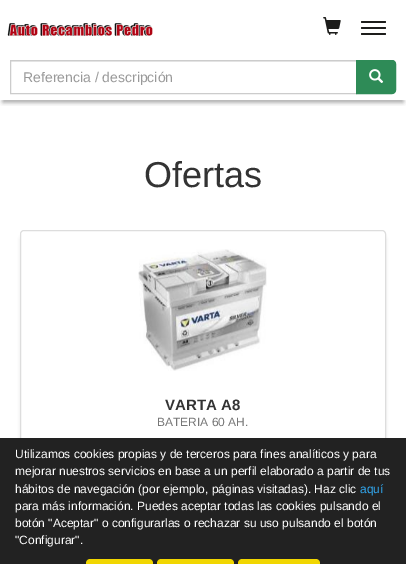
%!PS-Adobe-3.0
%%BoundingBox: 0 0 406 564
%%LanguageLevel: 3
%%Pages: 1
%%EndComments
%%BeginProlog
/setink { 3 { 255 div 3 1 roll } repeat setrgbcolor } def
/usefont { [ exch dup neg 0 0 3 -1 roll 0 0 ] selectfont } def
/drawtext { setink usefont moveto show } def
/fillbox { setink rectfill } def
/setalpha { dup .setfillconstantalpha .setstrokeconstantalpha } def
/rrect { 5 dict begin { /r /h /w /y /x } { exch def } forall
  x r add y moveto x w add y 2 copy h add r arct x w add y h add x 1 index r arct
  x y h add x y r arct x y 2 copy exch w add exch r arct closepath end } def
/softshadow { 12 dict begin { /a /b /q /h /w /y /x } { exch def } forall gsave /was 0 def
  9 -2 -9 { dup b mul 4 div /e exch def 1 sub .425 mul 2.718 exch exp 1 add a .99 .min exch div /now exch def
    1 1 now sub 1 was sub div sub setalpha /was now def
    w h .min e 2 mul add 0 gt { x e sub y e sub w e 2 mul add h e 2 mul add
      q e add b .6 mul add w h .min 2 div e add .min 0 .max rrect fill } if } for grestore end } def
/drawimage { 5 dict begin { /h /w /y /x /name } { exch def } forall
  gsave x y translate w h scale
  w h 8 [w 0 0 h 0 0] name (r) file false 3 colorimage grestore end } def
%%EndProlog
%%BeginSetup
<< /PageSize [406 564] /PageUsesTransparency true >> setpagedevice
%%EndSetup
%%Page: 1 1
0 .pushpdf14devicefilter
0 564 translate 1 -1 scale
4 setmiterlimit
0 0 406 564 255 255 255 fillbox
gsave
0 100 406 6 rectclip
0 0 0 setink
3 8 400 94 0 2.5 0.4 softshadow
grestore
(assets/img1.rgb) 7 23 146 14 drawimage
(assets/img2.rgb) 323 17 18 18 drawimage
29 29 27 setink
361 21 25 2 1 rrect fill
361 27 25 2 1 rrect fill
361 33 25 2 1 rrect fill
0.1 setalpha
0 100 406 1 255 255 255 fillbox
1 setalpha
11 61 345 1 236 236 236 fillbox
204 204 204 setink
10.5 60.5 346 33 rectstroke
(Referencia / descripción) 23 82 /LiberationSans-Regular 14 153 153 153 drawtext
46 139 87 setink
356.5 60.5 moveto 392 60.5 lineto 394 60.5 395.5 62 395.5 64 curveto 395.5 90 lineto 395.5 92 394 93.5 392 93.5 curveto 356.5 93.5 lineto closepath gsave fill grestore
stroke
(assets/img3.rgb) 369 69 15 14 drawimage
(Ofertas) 144 187 /LiberationSans-Regular 36 51 51 51 drawtext
0 0 0 setink
23 238 360 315 1 2.5 0.4 softshadow
255 255 255 setink
20.5 230.5 365 320 3.5 rrect gsave fill grestore
221 221 221 setink
stroke
(assets/img4.rgb) 138 249 129 122 drawimage
(VARTA A8) 165 410 /LiberationSans-Bold 15 51 51 51 drawtext
(BATERIA 60 AH.) 157 426 /LiberationSans-Regular 12 119 119 119 drawtext
0 438 406 126 34 34 34 fillbox
(Utilizamos cookies propias y de terceros para fines analíticos y para) 15 458 /LiberationSans-Regular 12 255 255 255 drawtext
(mejorar nuestros servicios en base a un perfil elaborado a partir de tus) 15 475 /LiberationSans-Regular 12 255 255 255 drawtext
(hábitos de navegación \(por ejemplo, páginas visitadas\). Haz clic) 15 493 /LiberationSans-Regular 12 255 255 255 drawtext
(aquí) 360 493 /LiberationSans-Regular 12 49 168 240 drawtext
(para más información. Puedes aceptar todas las cookies pulsando el) 15 510 /LiberationSans-Regular 12 255 255 255 drawtext
(botón "Aceptar" o configurarlas o rechazar su uso pulsando el botón) 15 527 /LiberationSans-Regular 12 255 255 255 drawtext
("Configurar".) 15 544 /LiberationSans-Regular 12 255 255 255 drawtext
241 214 0 setink
90 559 moveto 149 559 lineto 151 559 153 561 153 563 curveto 153 564 lineto 86 564 lineto 86 563 lineto 86 561 88 559 90 559 curveto closepath fill
161 559 moveto 230 559 lineto 232 559 234 561 234 563 curveto 234 564 lineto 157 564 lineto 157 563 lineto 157 561 159 559 161 559 curveto closepath fill
242 559 moveto 316 559 lineto 318 559 320 561 320 563 curveto 320 564 lineto 238 564 lineto 238 563 lineto 238 561 240 559 242 559 curveto closepath fill
.poppdf14devicefilter showpage
%%EOF
